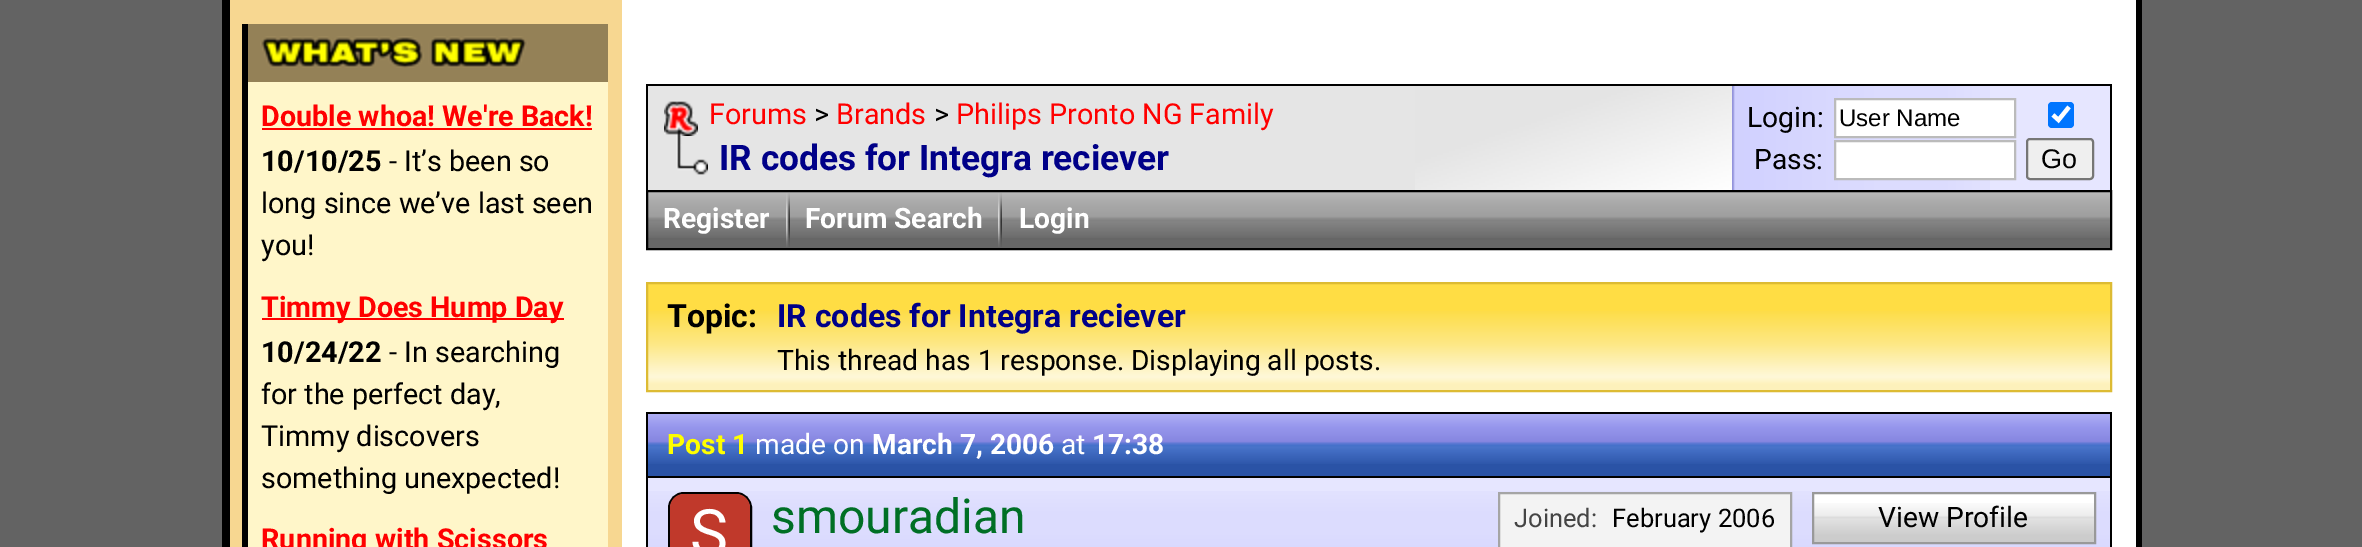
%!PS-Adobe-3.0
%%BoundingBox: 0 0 2362 547
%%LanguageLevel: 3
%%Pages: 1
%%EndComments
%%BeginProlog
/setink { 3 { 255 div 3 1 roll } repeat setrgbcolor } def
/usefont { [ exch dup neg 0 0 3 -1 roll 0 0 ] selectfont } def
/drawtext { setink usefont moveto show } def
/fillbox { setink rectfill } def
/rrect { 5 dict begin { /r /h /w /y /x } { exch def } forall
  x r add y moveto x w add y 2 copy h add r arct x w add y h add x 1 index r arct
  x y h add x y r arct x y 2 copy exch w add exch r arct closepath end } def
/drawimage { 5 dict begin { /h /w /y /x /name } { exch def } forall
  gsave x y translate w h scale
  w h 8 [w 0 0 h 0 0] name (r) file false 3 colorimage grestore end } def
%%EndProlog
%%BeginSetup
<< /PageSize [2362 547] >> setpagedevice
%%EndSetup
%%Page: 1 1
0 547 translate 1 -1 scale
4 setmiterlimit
0 0 2362 547 99 99 99 fillbox
230 0 392 547 247 215 145 fillbox
222 0 8 547 0 0 0 fillbox
242 24 6 523 0 0 0 fillbox
248 24 360 58 148 129 87 fillbox
(assets/img1.rgb) 260 36 268 32 drawimage
248 82 360 465 255 246 201 fillbox
(Double whoa! We're Back!) 261 126 /Roboto-Bold 28.75 255 0 0 drawtext
262 128 330 2 255 0 0 fillbox
(10/10/25) 261 171 /Roboto-Bold 28.75 0 0 0 drawtext
(- It’s been so) 389 171 /Roboto-Regular 28.75 0 0 0 drawtext
(long since we’ve last seen) 261 213 /Roboto-Regular 28.75 0 0 0 drawtext
(you!) 261 255 /Roboto-Regular 28.75 0 0 0 drawtext
262 318 302 2 255 0 0 fillbox
(Timmy Does Hump Day) 261 317 /Roboto-Bold 28.75 255 0 0 drawtext
(10/24/22) 261 362 /Roboto-Bold 28.75 0 0 0 drawtext
(- In searching) 389 362 /Roboto-Regular 28.75 0 0 0 drawtext
(for the perfect day,) 261 404 /Roboto-Regular 28.75 0 0 0 drawtext
(Timmy discovers) 261 446 /Roboto-Regular 28.75 0 0 0 drawtext
(something unexpected!) 261 488 /Roboto-Regular 28.75 0 0 0 drawtext
(Running with Scissors) 261 549 /Roboto-Bold 28.75 255 0 0 drawtext
622 0 1514 547 255 255 255 fillbox
2136 0 6 547 0 0 0 fillbox
646 84 1466 106 0 0 0 fillbox
648 86 767 104 229 229 229 fillbox
(assets/img2.rgb) 1415 86 317 104 drawimage
(assets/img3.rgb) 676 133 5 5 drawimage
(assets/img4.rgb) 664 101 34 35 drawimage
(Forums) 709 124 /Roboto-Regular 28.75 255 0 0 drawtext
(>) 814 124 /Roboto-Regular 28.75 0 0 0 drawtext
(Brands) 836 124 /Roboto-Regular 28.75 255 0 0 drawtext
(>) 934 124 /Roboto-Regular 28.75 0 0 0 drawtext
(Philips Pronto NG Family) 956 124 /Roboto-Regular 28.75 255 0 0 drawtext
(assets/img5.rgb) 676 138 32 37 drawimage
(IR codes for Integra reciever) 719 170 /Roboto-Bold 35.25 0 0 136 drawtext
1990 86 120 104 230 230 255 fillbox
(assets/img6.rgb) 1732 86 258 104 drawimage
(Login:) 1747 127 /Roboto-Regular 28.2 0 0 0 drawtext
255 255 255 setink
1835 99 moveto 2015 99 lineto 2015 137 lineto 1835 137 lineto closepath gsave fill grestore
187 187 187 setink
2 setlinewidth
stroke
(User Name) 1839 126 /LiberationSans-Regular 24 0 0 0 drawtext
0 117 255 setink
2048 102 26 26 4 rrect fill
255 255 255 setink
4.2 setlinewidth
2053 115 moveto 2058.5 120 lineto 2069 107 lineto stroke
239 239 239 setink
2027 139 66 40 3 rrect gsave fill grestore
118 118 118 setink
2 setlinewidth
stroke
(Go) 2041 168 /LiberationSans-Regular 27 0 0 0 drawtext
(Pass:) 1754 169 /Roboto-Regular 28.2 0 0 0 drawtext
255 255 255 setink
1835 141 moveto 2015 141 lineto 2015 179 lineto 1835 179 lineto closepath gsave fill grestore
187 187 187 setink
stroke
648 238 1462 10 102 102 102 fillbox
(assets/img7.rgb) 648 192 1462 46 drawimage
0 0 0 setink
647 191 1464 58 rectstroke
(Register) 663 228 /Roboto-Bold 28.2 255 255 255 drawtext
(assets/img8.rgb) 786 193 4 54 drawimage
(Forum Search) 805 228 /Roboto-Bold 28.2 255 255 255 drawtext
(assets/img8.rgb) 998 193 4 54 drawimage
(Login) 1019 228 /Roboto-Bold 28.2 255 255 255 drawtext
648 284 1462 27 255 221 68 fillbox
(assets/img9.rgb) 648 311 1462 79 drawimage
221 187 51 setink
647 283 1464 108 rectstroke
(Topic:) 667 327 /Roboto-Bold 32 0 0 0 drawtext
(IR codes for Integra reciever) 777 327 /Roboto-Bold 32 0 0 136 drawtext
(This thread has 1 response. Displaying all posts.) 777 370 /Roboto-Regular 28.2 0 0 0 drawtext
646 412 1466 135 0 0 0 fillbox
648 464 1462 12 42 83 166 fillbox
(assets/img10.rgb) 648 414 1462 50 drawimage
(Post 1) 667 454 /Roboto-Bold 28.2 255 255 0 drawtext
(made on) 755 454 /Roboto-Regular 28.2 255 255 255 drawtext
(March 7, 2006) 872 454 /Roboto-Bold 28.2 255 255 255 drawtext
(at) 1061 454 /Roboto-Regular 28.2 255 255 255 drawtext
(17:38) 1092 454 /Roboto-Bold 28.2 255 255 255 drawtext
648 478 1462 13 230 230 255 fillbox
(assets/img11.rgb) 648 491 1462 56 drawimage
0 0 0 setink
669 493 82 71 15 rrect stroke
192 57 43 setink
670 494 80 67 14 rrect fill
(S) 690 555 /Roboto-Regular 64 255 255 255 drawtext
(smouradian) 771 533 /Roboto-Regular 48 0 111 37 drawtext
243 243 243 setink
1499 493 moveto 1791 493 lineto 1791 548 lineto 1499 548 lineto closepath gsave fill grestore
165 165 165 setink
stroke
(Joined:) 1514 527 /Roboto-Regular 25.5 68 68 68 drawtext
(February 2006) 1612 527 /Roboto-Regular 25.5 0 0 0 drawtext
1814 494 280 9 255 255 255 fillbox
(assets/img12.rgb) 1814 503 280 39 drawimage
153 153 153 setink
1813 493 282 50 rectstroke
(View Profile) 1878 527 /Roboto-Regular 28.2 0 0 0 drawtext
showpage
%%EOF
